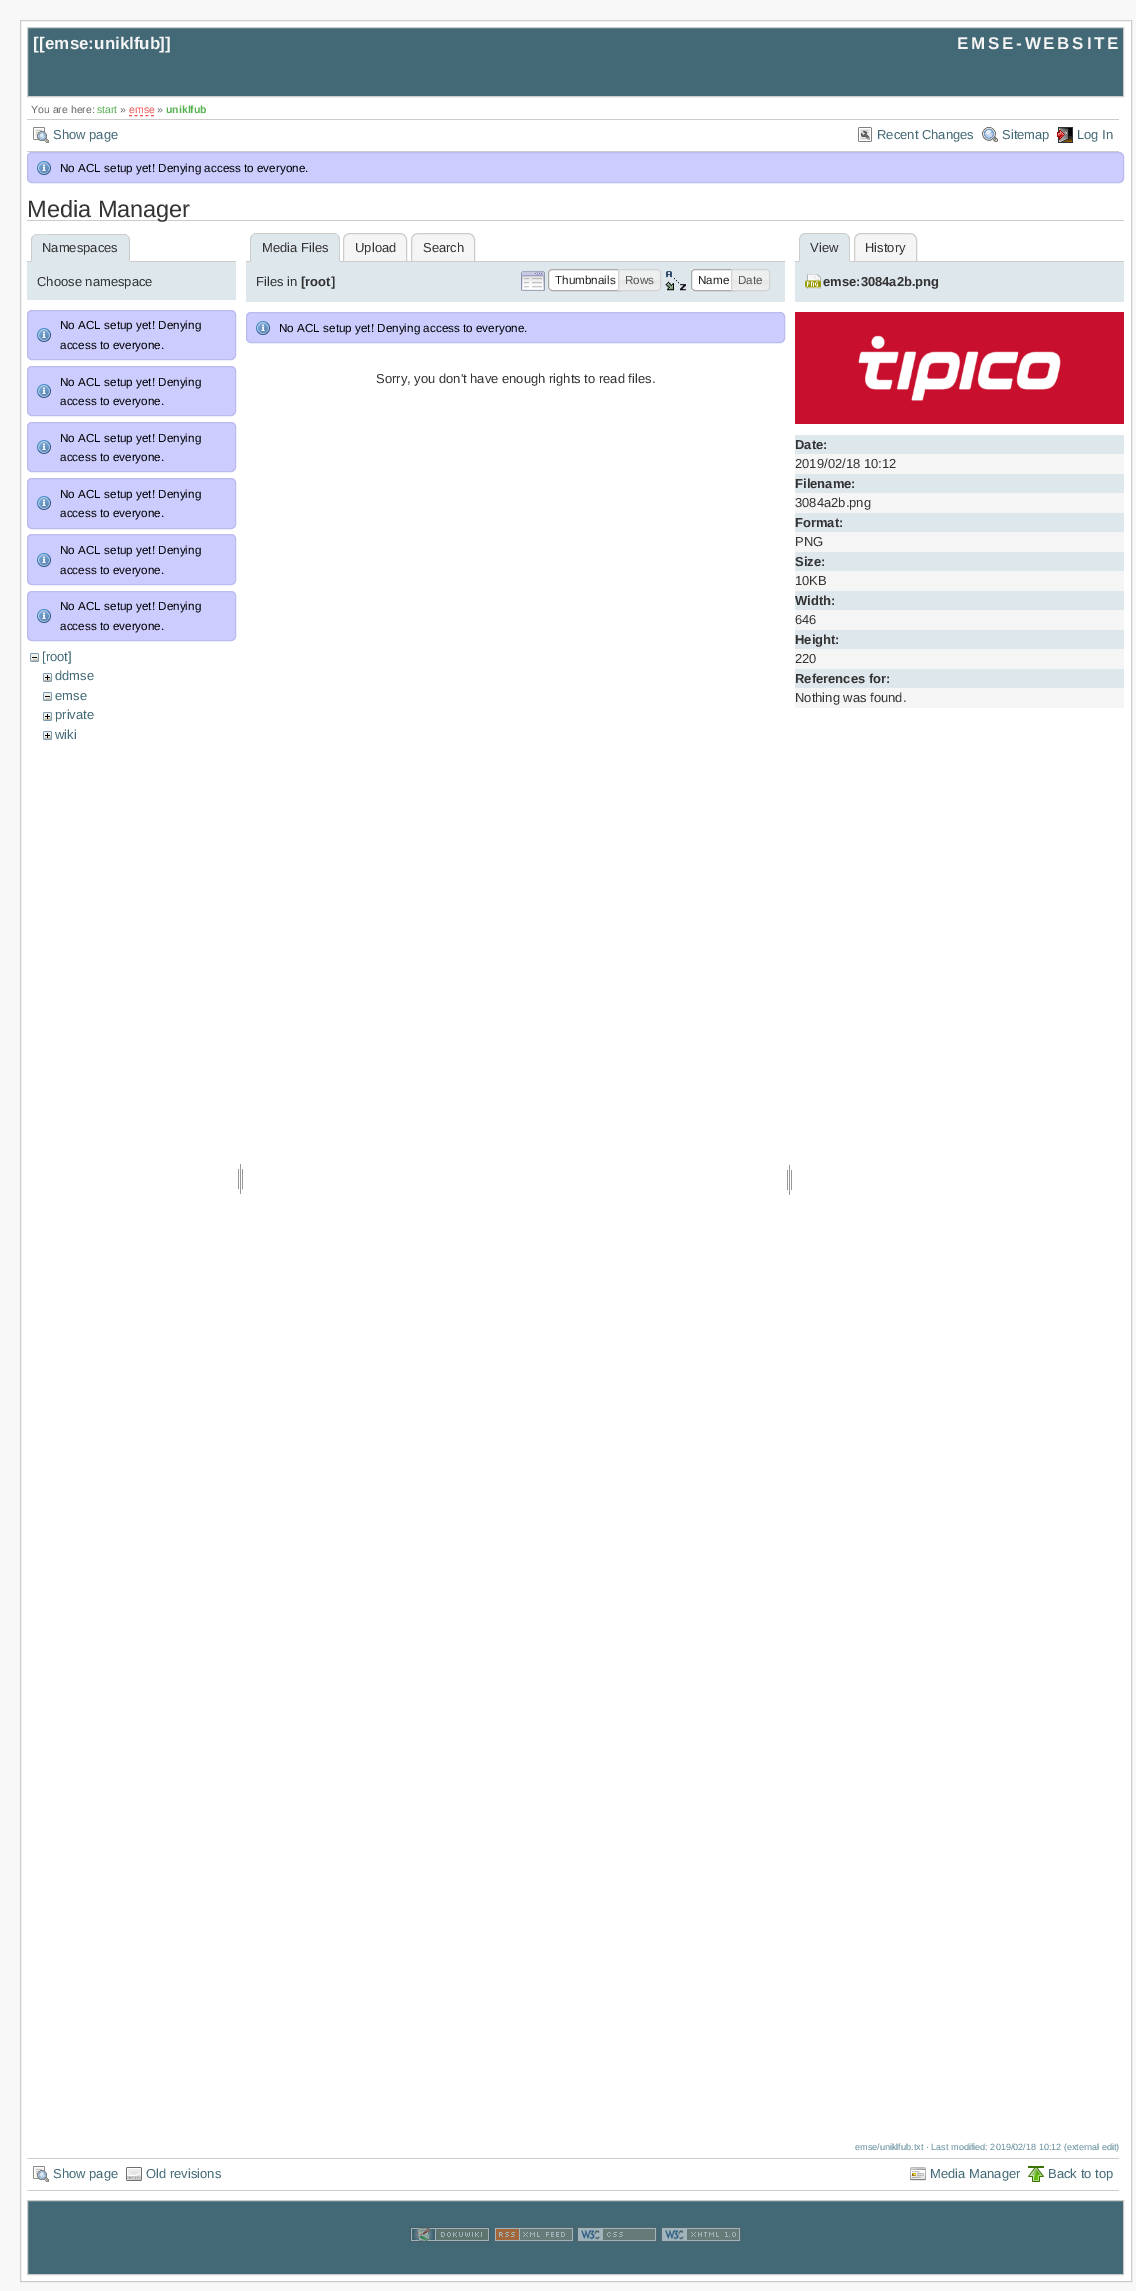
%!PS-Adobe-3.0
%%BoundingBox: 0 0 1136 2291
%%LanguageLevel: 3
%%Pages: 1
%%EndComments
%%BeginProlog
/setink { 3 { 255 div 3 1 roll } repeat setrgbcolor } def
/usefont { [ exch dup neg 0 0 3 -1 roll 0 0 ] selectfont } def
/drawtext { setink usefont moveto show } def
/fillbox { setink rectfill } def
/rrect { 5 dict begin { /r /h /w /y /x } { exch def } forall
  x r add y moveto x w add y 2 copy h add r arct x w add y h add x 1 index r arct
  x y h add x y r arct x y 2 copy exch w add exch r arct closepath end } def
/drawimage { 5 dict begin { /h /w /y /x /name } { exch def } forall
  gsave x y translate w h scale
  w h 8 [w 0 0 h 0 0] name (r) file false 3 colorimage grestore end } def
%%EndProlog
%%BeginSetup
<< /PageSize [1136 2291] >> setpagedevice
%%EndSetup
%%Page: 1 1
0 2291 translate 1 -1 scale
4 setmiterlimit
0 0 1136 2291 248 248 248 fillbox
255 255 255 setink
20.5 20.5 moveto 1131.5 20.5 lineto 1131.5 2281.5 lineto 20.5 2281.5 lineto closepath gsave fill grestore
204 204 204 setink
stroke
67 105 118 setink
27.5 27.5 moveto 1123.5 27.5 lineto 1123.5 96.5 lineto 27.5 96.5 lineto closepath gsave fill grestore
204 204 204 setink
stroke
([[) 33 49 /LiberationSans-Bold 17 245 245 245 drawtext
(emse:uniklfub) 45 49 /LiberationSans-Bold 17 245 245 245 drawtext
(]]) 159 49 /LiberationSans-Bold 17 245 245 245 drawtext
957 49 moveto 2.75 0 (EMSE-WEBSITE) ashow
(You are here:) 31 113 /LiberationSans-Regular 10.5 102 102 102 drawtext
(start) 97 113 /LiberationSans-Regular 10.5 86 176 79 drawtext
(») 120 113 /LiberationSans-Regular 10.5 102 102 102 drawtext
(emse) 129 113 /LiberationSans-Regular 10.5 237 83 83 drawtext
[3 2.5] 0 setdash
129 115.5 moveto 154 115.5 lineto stroke
(») 157 113 /LiberationSans-Regular 10.5 102 102 102 drawtext
(uniklfub) 166 113 /LiberationSans-Bold 10.5 86 176 79 drawtext
27 119 1092 1 204 204 204 fillbox
27 151 1092 1 204 204 204 fillbox
(assets/img1.rgb) 33 127 16 16 drawimage
(Show page) 53 139 /LiberationSans-Regular 13 67 105 118 drawtext
(assets/img2.rgb) 858 127 14 15 drawimage
(Recent Changes) 877 139 /LiberationSans-Regular 13 67 105 118 drawtext
(assets/img3.rgb) 982 127 16 15 drawimage
(Sitemap) 1002 139 /LiberationSans-Regular 13 67 105 118 drawtext
(assets/img4.rgb) 1057 127 16 16 drawimage
(Log In) 1077 139 /LiberationSans-Regular 13 67 105 118 drawtext
204 204 255 setink
27 152 1097 31 5 rrect fill
(assets/img5.rgb) 37 161 14 14 drawimage
187 187 238 setink
[] 0 setdash
27.5 152.5 1096 30 4.5 rrect stroke
(No ACL setup yet! Denying access to everyone.) 60 172 /LiberationSans-Regular 11.7 0 0 0 drawtext
27 220 1097 1 204 204 204 fillbox
(Media Manager) 27 217 /LiberationSans-Regular 23.5 51 51 51 drawtext
27 261 209 1 204 204 204 fillbox
222 231 236 setink
38 234 moveto 123 234 lineto 127 234 130 237 130 241 curveto 130 262 lineto 31 262 lineto 31 241 lineto 31 237 34 234 38 234 curveto closepath fill
204 204 204 setink
38 234 moveto 36 234 34 235 33 236 curveto 37 233 51 235 52 235 curveto 125 235 lineto 128 236 lineto 127 235 126 234 124 234 curveto closepath fill
130 262 moveto 130 240 lineto 130 238.5 129 237 128 236 curveto 127.5 236.5 lineto 128.5 237 129 238.5 129 240 curveto 129 261 lineto closepath fill
222 231 236 setink
130 262 moveto 129 261 lineto 32 261 lineto 31 262 lineto closepath fill
204 204 204 setink
31 262 moveto 32 261 lineto 32 240 lineto 32 238.5 32.5 237.5 33.5 236.5 curveto 33 236 lineto 31.5 237 31 238.5 31 240 curveto closepath fill
(Namespaces) 42 252 /LiberationSans-Regular 13 51 51 51 drawtext
27 262 209 38 222 231 236 fillbox
(Choose namespace) 37 286 /LiberationSans-Regular 13 51 51 51 drawtext
204 204 255 setink
27 310 209 50 5 rrect fill
(assets/img5.rgb) 37 328 14 14 drawimage
187 187 238 setink
27.5 310.5 208 49 4.5 rrect stroke
(No ACL setup yet! Denying) 60 329 /LiberationSans-Regular 11.7 0 0 0 drawtext
(access to everyone.) 60 349 /LiberationSans-Regular 11.7 0 0 0 drawtext
204 204 255 setink
27 366 209 50 5 rrect fill
(assets/img5.rgb) 37 384 14 14 drawimage
187 187 238 setink
27.5 366.5 208 49 4.5 rrect stroke
(No ACL setup yet! Denying) 60 386 /LiberationSans-Regular 11.7 0 0 0 drawtext
(access to everyone.) 60 405 /LiberationSans-Regular 11.7 0 0 0 drawtext
204 204 255 setink
27 422 209 50 5 rrect fill
(assets/img5.rgb) 37 440 14 14 drawimage
187 187 238 setink
27.5 422.5 208 49 4.5 rrect stroke
(No ACL setup yet! Denying) 60 442 /LiberationSans-Regular 11.7 0 0 0 drawtext
(access to everyone.) 60 461 /LiberationSans-Regular 11.7 0 0 0 drawtext
204 204 255 setink
27 478 209 51 5 rrect fill
(assets/img5.rgb) 37 496 14 14 drawimage
187 187 238 setink
27.5 478.5 208 50 4.5 rrect stroke
(No ACL setup yet! Denying) 60 498 /LiberationSans-Regular 11.7 0 0 0 drawtext
(access to everyone.) 60 517 /LiberationSans-Regular 11.7 0 0 0 drawtext
204 204 255 setink
27 534 209 51 5 rrect fill
(assets/img5.rgb) 37 553 14 14 drawimage
187 187 238 setink
27.5 534.5 208 50 4.5 rrect stroke
(No ACL setup yet! Denying) 60 554 /LiberationSans-Regular 11.7 0 0 0 drawtext
(access to everyone.) 60 574 /LiberationSans-Regular 11.7 0 0 0 drawtext
204 204 255 setink
27 591 209 50 5 rrect fill
(assets/img5.rgb) 37 609 14 14 drawimage
187 187 238 setink
27.5 591.5 208 49 4.5 rrect stroke
(No ACL setup yet! Denying) 60 610 /LiberationSans-Regular 11.7 0 0 0 drawtext
(access to everyone.) 60 630 /LiberationSans-Regular 11.7 0 0 0 drawtext
(assets/img6.rgb) 30 653 9 9 drawimage
([root]) 42 661 /LiberationSans-Regular 13 67 105 118 drawtext
(assets/img7.rgb) 43 673 9 9 drawimage
(ddmse) 55 680 /LiberationSans-Regular 13 67 105 118 drawtext
(assets/img6.rgb) 43 692 9 9 drawimage
(emse) 55 700 /LiberationSans-Regular 13 67 105 118 drawtext
(assets/img7.rgb) 43 712 9 9 drawimage
(private) 55 719 /LiberationSans-Regular 13 67 105 118 drawtext
(assets/img7.rgb) 43 731 9 9 drawimage
(wiki) 55 739 /LiberationSans-Regular 13 67 105 118 drawtext
(assets/img8.rgb) 238 1163 5 31 drawimage
245 245 245 setink
350 233.5 moveto 400 233.5 lineto 403.5 233.5 406.5 236.5 406.5 240 curveto 406.5 261.5 lineto 343.5 261.5 lineto 343.5 240 lineto 343.5 236.5 346.5 233.5 350 233.5 curveto closepath gsave fill grestore
204 204 204 setink
stroke
245 245 245 setink
418 233.5 moveto 468 233.5 lineto 471.5 233.5 474.5 236.5 474.5 240 curveto 474.5 261.5 lineto 411.5 261.5 lineto 411.5 240 lineto 411.5 236.5 414.5 233.5 418 233.5 curveto closepath gsave fill grestore
204 204 204 setink
stroke
246 261 539 1 204 204 204 fillbox
222 231 236 setink
257 233 moveto 333 233 lineto 337 233 340 236 340 240 curveto 340 262 lineto 250 262 lineto 250 240 lineto 250 236 253 233 257 233 curveto closepath fill
204 204 204 setink
256 233 moveto 255 233 253 234 252 235 curveto 255 234 lineto 335 234 lineto 338 235 lineto 337 234 335 233 334 233 curveto closepath fill
340 262 moveto 340 240 lineto 340 238 339 236 338 235 curveto 337.5 235.5 lineto 338.5 236.5 339 238 339 240 curveto 339 261 lineto closepath fill
222 231 236 setink
340 262 moveto 339 261 lineto 251 261 lineto 250 262 lineto closepath fill
204 204 204 setink
250 262 moveto 251 261 lineto 251 240 lineto 251 238 251.5 236.5 252.5 235.5 curveto 252 235 lineto 251 236 250 238 250 240 curveto closepath fill
(Media Files) 262 252 /LiberationSans-Regular 13 51 51 51 drawtext
(Upload) 355 252 /LiberationSans-Regular 13 51 51 51 drawtext
(Search) 423 252 /LiberationSans-Regular 13 51 51 51 drawtext
246 262 539 40 222 231 236 fillbox
(Files in) 256 286 /LiberationSans-Regular 13 51 51 51 drawtext
([root]) 301 286 /LiberationSans-Bold 13 51 51 51 drawtext
(assets/img9.rgb) 521 271 24 20 drawimage
548 269 70 22 255 255 255 fillbox
170 170 170 setink
552 269.5 moveto 621.5 269.5 lineto 621.5 290.5 lineto 552 290.5 lineto 550 290.5 548.5 289 548.5 287 curveto 548.5 273 lineto 548.5 271 550 269.5 552 269.5 curveto closepath stroke
(Thumbnails) 555 284 /LiberationSans-Regular 11.7 33 33 33 drawtext
(assets/img10.rgb) 619 269 42 22 drawimage
211 211 211 setink
618.5 269.5 moveto 657 269.5 lineto 659 269.5 660.5 271 660.5 273 curveto 660.5 287 lineto 660.5 289 659 290.5 657 290.5 curveto 618.5 290.5 lineto closepath stroke
(Rows) 625 284 /LiberationSans-Regular 11.7 85 85 85 drawtext
(assets/img11.rgb) 665 271 21 20 drawimage
691 269 40 22 255 255 255 fillbox
170 170 170 setink
695 269.5 moveto 735.5 269.5 lineto 735.5 290.5 lineto 695 290.5 lineto 693 290.5 691.5 289 691.5 287 curveto 691.5 273 lineto 691.5 271 693 269.5 695 269.5 curveto closepath stroke
(Name) 698 284 /LiberationSans-Regular 11.7 33 33 33 drawtext
(assets/img12.rgb) 732 269 38 22 drawimage
211 211 211 setink
731.5 269.5 moveto 766 269.5 lineto 768 269.5 769.5 271 769.5 273 curveto 769.5 287 lineto 769.5 289 768 290.5 766 290.5 curveto 731.5 290.5 lineto closepath stroke
(Date) 738 284 /LiberationSans-Regular 11.7 85 85 85 drawtext
204 204 255 setink
246 312 539 31 5 rrect fill
(assets/img5.rgb) 256 321 14 14 drawimage
187 187 238 setink
246.5 312.5 538 30 4.5 rrect stroke
(No ACL setup yet! Denying access to everyone.) 279 332 /LiberationSans-Regular 11.7 0 0 0 drawtext
(Sorry, you don't have enough rights to read files.) 376 383 /LiberationSans-Regular 13 51 51 51 drawtext
(assets/img8.rgb) 787 1164 5 31 drawimage
245 245 245 setink
861 233.5 moveto 910 233.5 lineto 913.5 233.5 916.5 236.5 916.5 240 curveto 916.5 261.5 lineto 854.5 261.5 lineto 854.5 240 lineto 854.5 236.5 857.5 233.5 861 233.5 curveto closepath gsave fill grestore
204 204 204 setink
stroke
795 261 329 1 204 204 204 fillbox
222 231 236 setink
806 233 moveto 843 233 lineto 847 233 850 236 850 240 curveto 850 262 lineto 799 262 lineto 799 240 lineto 799 236 802 233 806 233 curveto closepath fill
204 204 204 setink
806 233 moveto 804 233 802 234 801 235 curveto 802 236 lineto 802 234 804 234 806 234 curveto 844 234 lineto 845 234 847 234 848 235 curveto 847 234 845 233 844 233 curveto closepath fill
850 262 moveto 850 240 lineto 850 238 849 236 848 235 curveto 847.5 235.5 lineto 848.5 236.5 849 238 849 240 curveto 849 261 lineto closepath fill
222 231 236 setink
850 262 moveto 849 261 lineto 800 261 lineto 799 262 lineto closepath fill
204 204 204 setink
799 262 moveto 800 261 lineto 800 240 lineto 800 238 800.5 236.5 801.5 235.5 curveto 801 235 lineto 800 236 799 238 799 240 curveto closepath fill
(View) 810 252 /LiberationSans-Regular 13 51 51 51 drawtext
(History) 865 252 /LiberationSans-Regular 13 51 51 51 drawtext
795 262 329 40 222 231 236 fillbox
(assets/img13.rgb) 805 274 16 15 drawimage
(emse:3084a2b.png) 823 286 /LiberationSans-Bold 13 51 51 51 drawtext
(assets/img14.rgb) 795 312 329 112 drawimage
795 435 329 19 222 231 236 fillbox
(Date:) 795 449 /LiberationSans-Bold 13 51 51 51 drawtext
795 454 329 20 245 245 245 fillbox
(2019/02/18 10:12) 795 468 /LiberationSans-Regular 13 51 51 51 drawtext
795 474 329 19 222 231 236 fillbox
(Filename:) 795 488 /LiberationSans-Bold 13 51 51 51 drawtext
795 493 329 20 245 245 245 fillbox
(3084a2b.png) 795 507 /LiberationSans-Regular 13 51 51 51 drawtext
795 513 329 19 222 231 236 fillbox
(Format:) 795 527 /LiberationSans-Bold 13 51 51 51 drawtext
795 532 329 20 245 245 245 fillbox
(PNG) 795 546 /LiberationSans-Regular 13 51 51 51 drawtext
795 552 329 19 222 231 236 fillbox
(Size:) 795 566 /LiberationSans-Bold 13 51 51 51 drawtext
795 571 329 20 245 245 245 fillbox
(10KB) 795 585 /LiberationSans-Regular 13 51 51 51 drawtext
795 591 329 19 222 231 236 fillbox
(Width:) 795 605 /LiberationSans-Bold 13 51 51 51 drawtext
795 610 329 20 245 245 245 fillbox
(646) 795 624 /LiberationSans-Regular 13 51 51 51 drawtext
795 630 329 19 222 231 236 fillbox
(Height:) 795 644 /LiberationSans-Bold 13 51 51 51 drawtext
795 649 329 20 245 245 245 fillbox
(220) 795 663 /LiberationSans-Regular 13 51 51 51 drawtext
795 669 329 19 222 231 236 fillbox
(References for:) 795 683 /LiberationSans-Bold 13 51 51 51 drawtext
795 688 329 20 245 245 245 fillbox
(Nothing was found.) 795 702 /LiberationSans-Regular 13 51 51 51 drawtext
(emse/uniklfub.txt · Last modified: 2019/02/18 10:12 \(external edit\)) 855 2150 /LiberationSans-Regular 9.1 99 140 156 drawtext
27 2158 1092 1 204 204 204 fillbox
27 2190 1092 1 204 204 204 fillbox
(assets/img1.rgb) 33 2166 16 16 drawimage
(Show page) 53 2178 /LiberationSans-Regular 13 67 105 118 drawtext
(assets/img15.rgb) 126 2167 16 14 drawimage
(Old revisions) 146 2178 /LiberationSans-Regular 13 67 105 118 drawtext
(assets/img16.rgb) 910 2167 16 14 drawimage
(Media Manager) 930 2178 /LiberationSans-Regular 13 67 105 118 drawtext
(assets/img17.rgb) 1028 2166 16 16 drawimage
(Back to top) 1048 2178 /LiberationSans-Regular 13 67 105 118 drawtext
27.5 2200.5 moveto 1123.5 2200.5 lineto 1123.5 2274.5 lineto 27.5 2274.5 lineto closepath gsave fill grestore
204 204 204 setink
stroke
(assets/img18.rgb) 410 2227 80 15 drawimage
(assets/img19.rgb) 494 2227 80 15 drawimage
(assets/img20.rgb) 577 2227 80 15 drawimage
(assets/img21.rgb) 661 2227 80 15 drawimage
showpage
%%EOF
